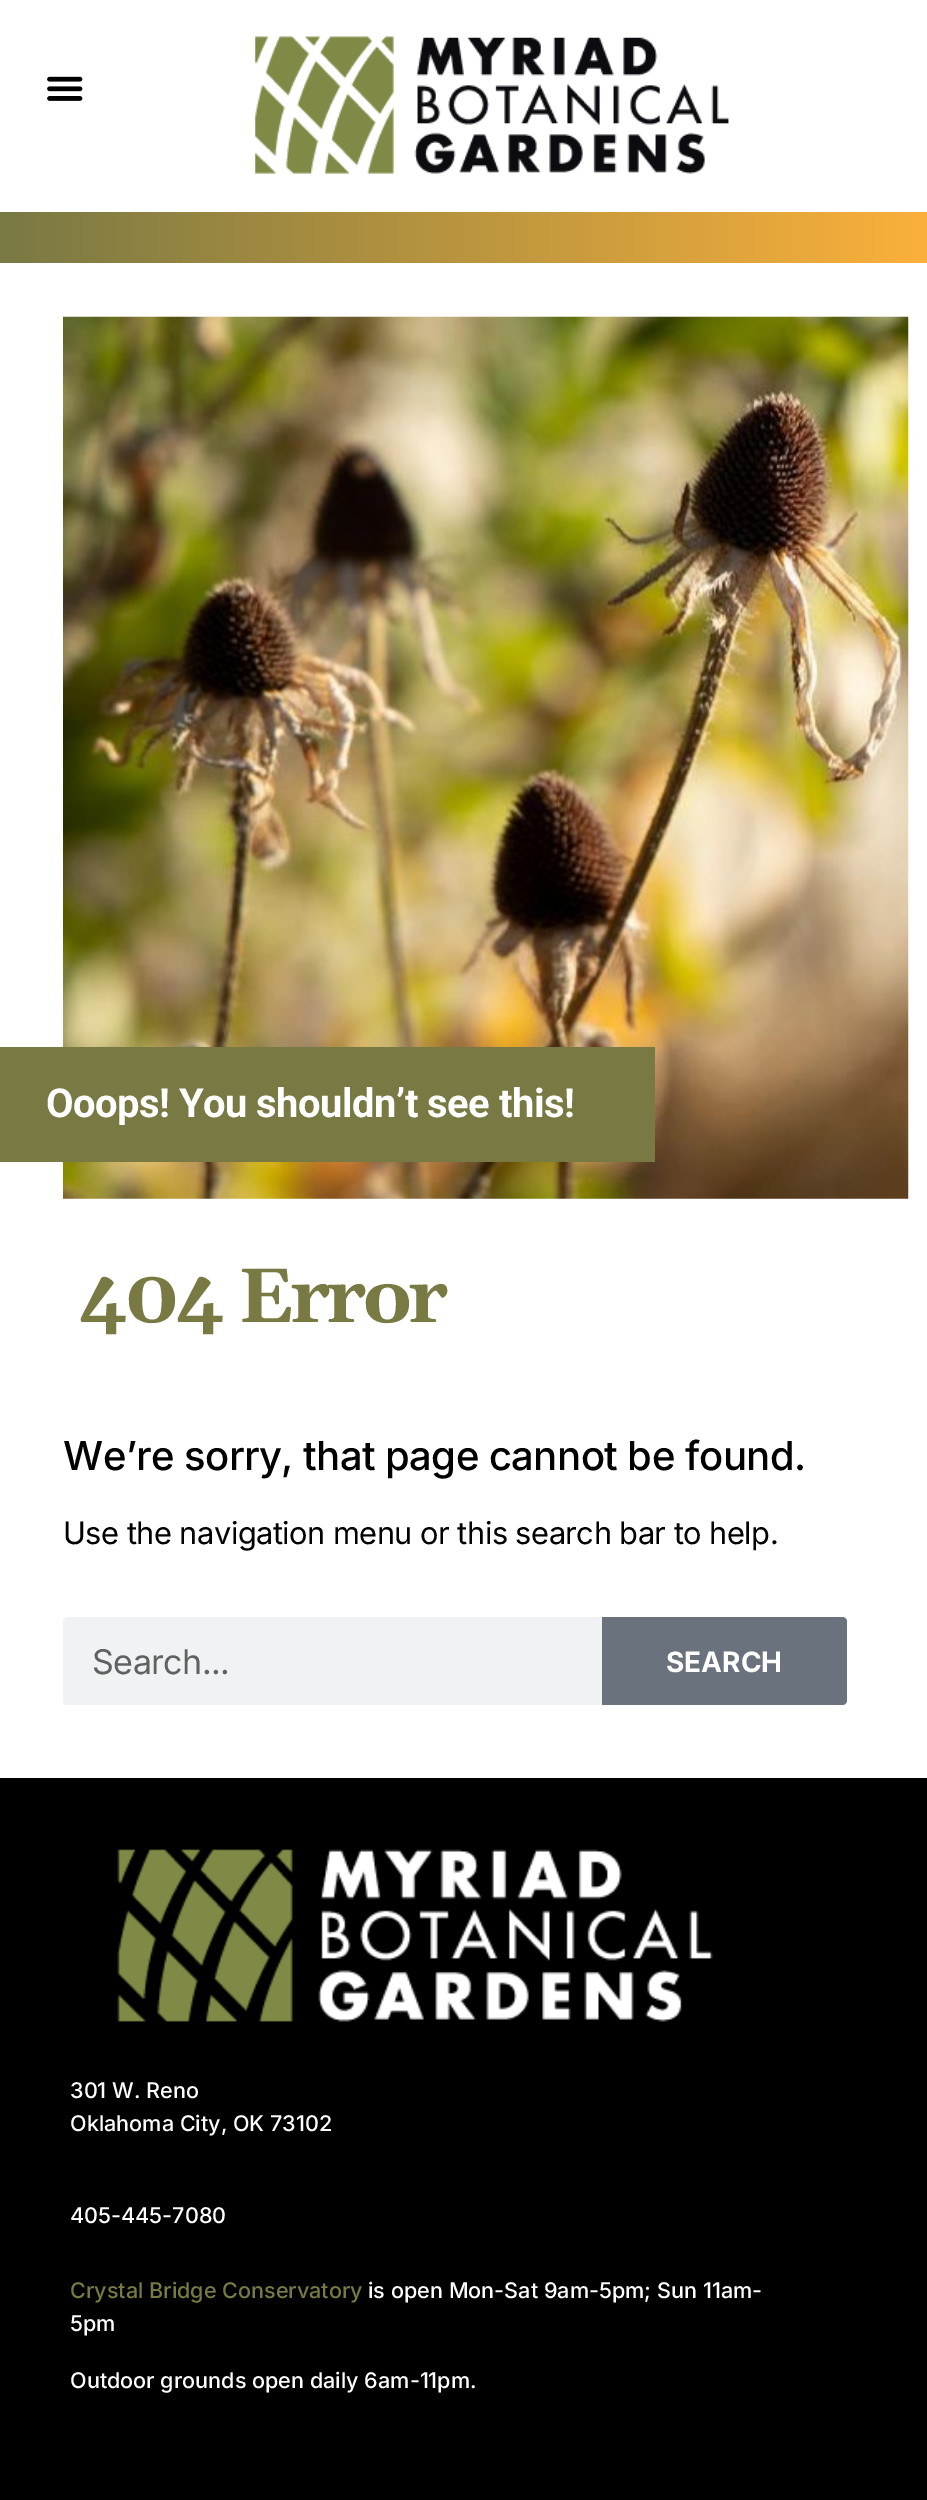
%!PS-Adobe-3.0
%%BoundingBox: 0 0 927 2500
%%LanguageLevel: 3
%%Pages: 1
%%EndComments
%%BeginProlog
/setink { 3 { 255 div 3 1 roll } repeat setrgbcolor } def
/usefont { [ exch dup neg 0 0 3 -1 roll 0 0 ] selectfont } def
/drawtext { setink usefont moveto show } def
/fillbox { setink rectfill } def
/rrect { 5 dict begin { /r /h /w /y /x } { exch def } forall
  x r add y moveto x w add y 2 copy h add r arct x w add y h add x 1 index r arct
  x y h add x y r arct x y 2 copy exch w add exch r arct closepath end } def
/drawimage { 5 dict begin { /h /w /y /x /name } { exch def } forall
  gsave x y translate w h scale
  w h 8 [w 0 0 h 0 0] name (r) file false 3 colorimage grestore end } def
%%EndProlog
%%BeginSetup
<< /PageSize [927 2500] >> setpagedevice
%%EndSetup
%%Page: 1 1
0 2500 translate 1 -1 scale
4 setmiterlimit
0 0 927 2500 255 255 255 fillbox
(assets/img1.rgb) 47 76 36 25 drawimage
(assets/img2.rgb) 255 36 474 138 drawimage
gsave 0 212 moveto 927 212 lineto 927 263 lineto 0 263 lineto closepath clip newpath
<< /ShadingType 2 /ColorSpace /DeviceRGB /Coords [0 237 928 237] /Extend [true true] /Function << /FunctionType 2 /Domain [0 1] /C0 [0.475 0.475 0.267] /C1 [0.984 0.69 0.231] /N 1 >> >> shfill grestore
(assets/img3.rgb) 63 316 846 883 drawimage
0 1047 655 115 121 121 68 fillbox
/Roboto-Bold 40 usefont
255 255 255 setink
46 1117 moveto -0.53 0 (Ooops! You shouldn’t see this!) ashow
/Gelasio-Bold 77 usefont
121 121 68 setink
78 1322 moveto -3.5 0 (404 Error) ashow
/Inter-Medium 40 usefont
0 0 0 setink
63 1470 moveto -0.53 0 (We’re sorry, that page cannot be found.) ashow
/Inter-Regular 30.8 usefont
63 1544 moveto -0.53 0 (Use the navigation menu or this search bar to help.) ashow
241 242 243 setink
63 1617 784 88 5 rrect fill
/Inter-Regular 34 usefont
96 97 97 setink
92 1674 moveto -0.53 0 (Search...) ashow
105 114 125 setink
602 1617 moveto 842 1617 lineto 845 1617 847 1619 847 1622 curveto 847 1700 lineto 847 1703 845 1705 842 1705 curveto 602 1705 lineto closepath fill
(SEARCH) 666 1672 /Inter-Bold 28 255 255 255 drawtext
0 1778 927 722 0 0 0 fillbox
(assets/img4.rgb) 117 1849 596 173 drawimage
(301 W. Reno) 70 2098 /Inter-Medium 21.6 255 255 255 drawtext
(Oklahoma City, OK 73102) 70 2131 /Inter-Medium 21.6 255 255 255 drawtext
(405-445-7080) 70 2223 /Inter-Medium 21.6 255 255 255 drawtext
(Crystal Bridge Conservatory) 70 2298 /Inter-Medium 21.6 121 121 68 drawtext
(is open Mon-Sat 9am-5pm; Sun 11am-) 368 2298 /Inter-Medium 21.6 255 255 255 drawtext
(5pm) 70 2331 /Inter-Medium 21.6 255 255 255 drawtext
(Outdoor grounds open daily 6am-11pm.) 70 2388 /Inter-Medium 21.6 255 255 255 drawtext
showpage
%%EOF
